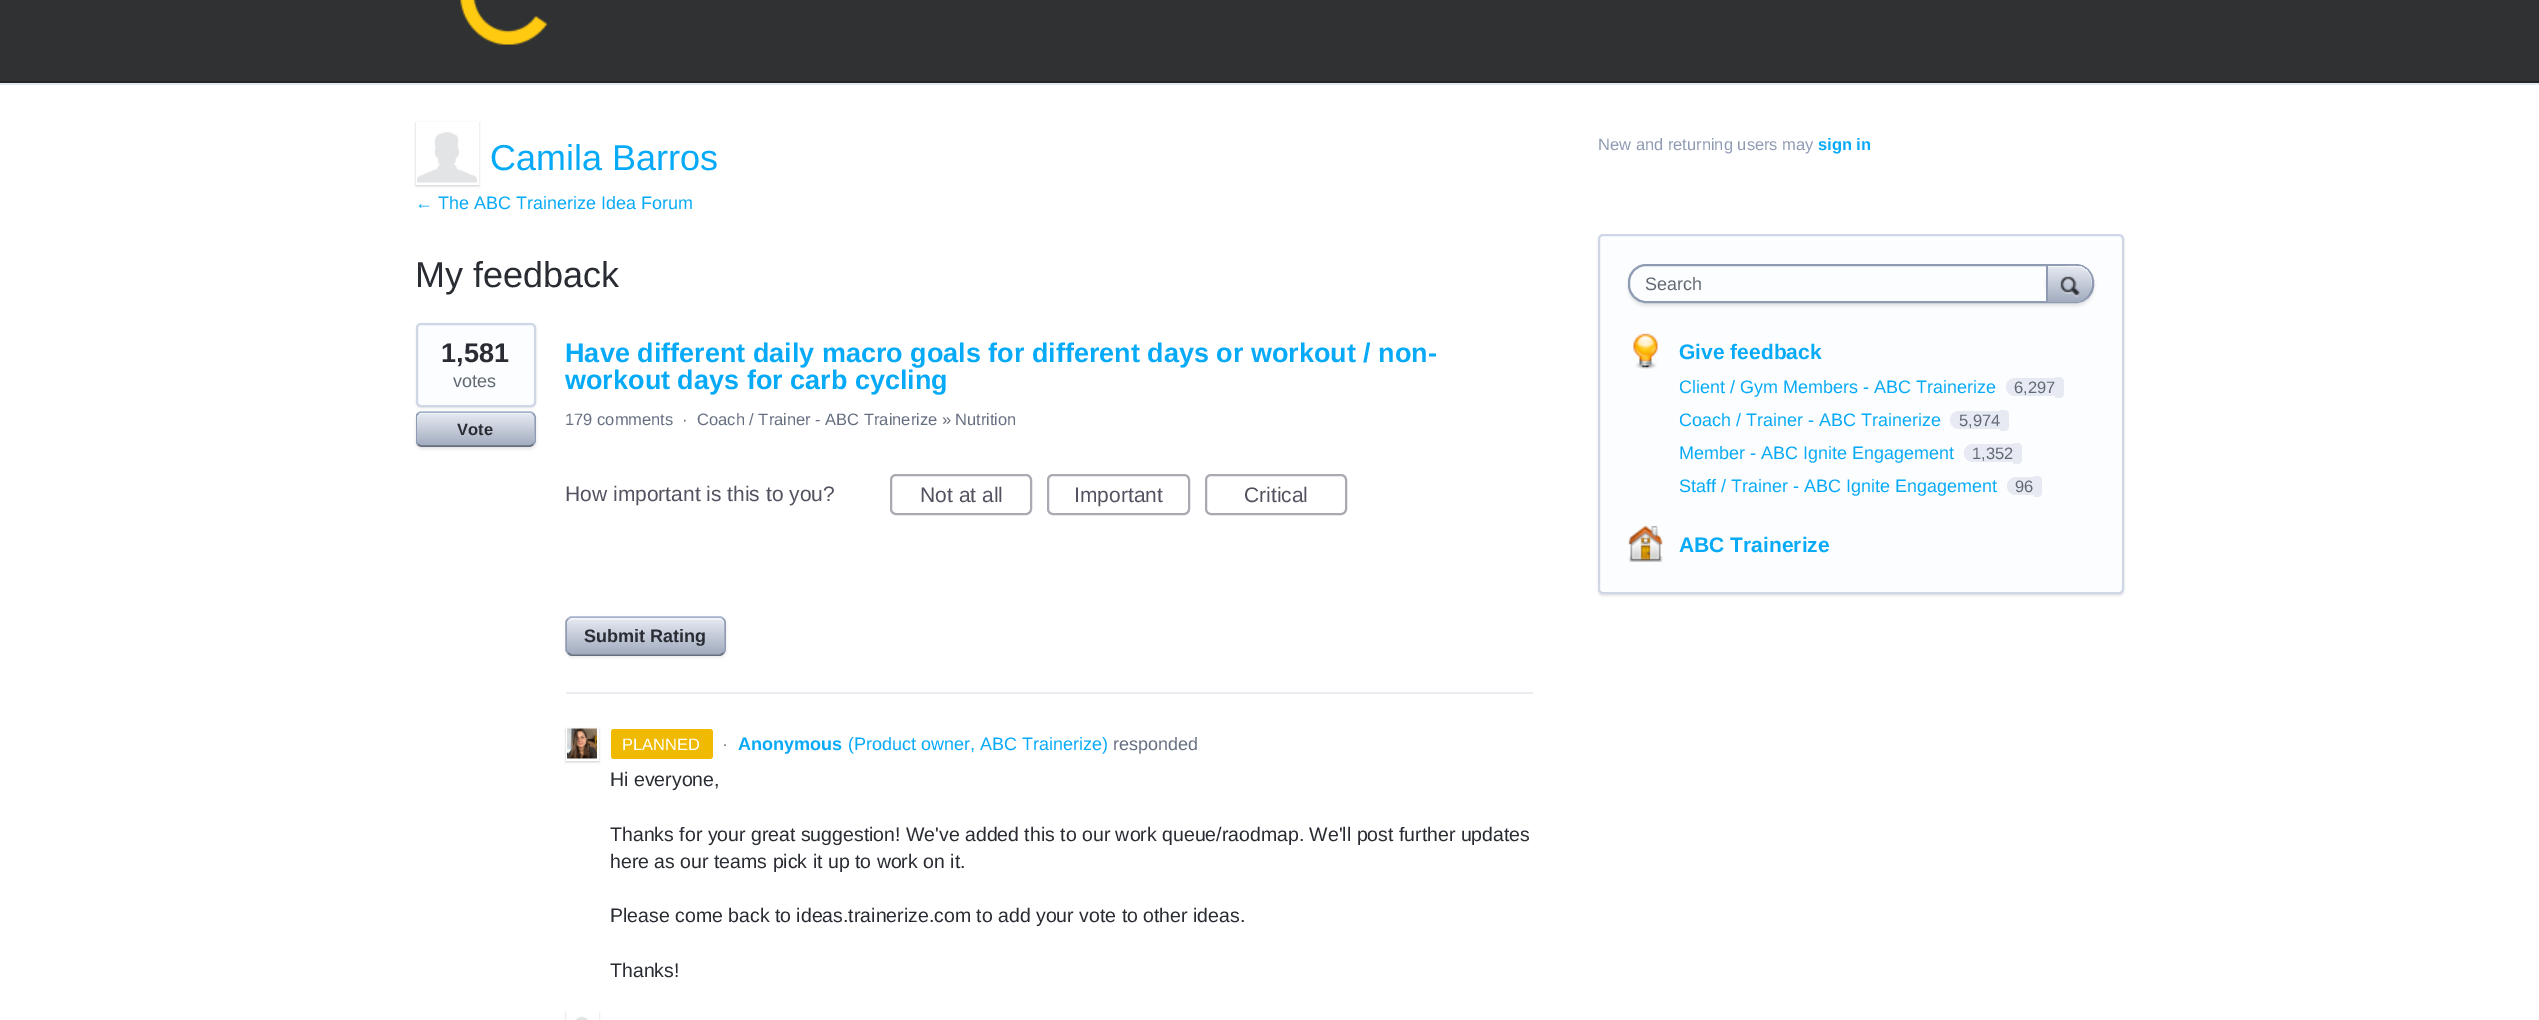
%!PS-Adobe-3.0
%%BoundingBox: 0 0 2539 1020
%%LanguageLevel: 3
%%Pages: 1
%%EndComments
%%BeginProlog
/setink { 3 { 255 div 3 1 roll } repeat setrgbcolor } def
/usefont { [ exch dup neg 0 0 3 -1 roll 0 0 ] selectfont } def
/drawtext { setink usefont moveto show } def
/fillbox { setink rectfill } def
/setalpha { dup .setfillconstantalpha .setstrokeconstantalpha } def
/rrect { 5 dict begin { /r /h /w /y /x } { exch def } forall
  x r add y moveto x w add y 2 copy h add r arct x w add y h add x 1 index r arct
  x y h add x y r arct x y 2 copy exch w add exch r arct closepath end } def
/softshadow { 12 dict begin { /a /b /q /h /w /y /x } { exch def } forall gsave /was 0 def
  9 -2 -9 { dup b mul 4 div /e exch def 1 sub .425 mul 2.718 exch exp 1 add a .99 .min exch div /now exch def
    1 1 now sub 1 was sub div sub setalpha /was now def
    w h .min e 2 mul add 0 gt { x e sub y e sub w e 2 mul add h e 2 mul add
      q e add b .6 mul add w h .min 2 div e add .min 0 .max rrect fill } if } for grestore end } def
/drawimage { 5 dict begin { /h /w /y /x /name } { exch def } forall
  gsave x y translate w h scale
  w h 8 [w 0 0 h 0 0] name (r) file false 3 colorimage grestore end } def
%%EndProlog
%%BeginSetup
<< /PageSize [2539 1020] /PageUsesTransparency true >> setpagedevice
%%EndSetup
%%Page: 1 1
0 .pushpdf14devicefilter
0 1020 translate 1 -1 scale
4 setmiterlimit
0 0 2539 1020 255 255 255 fillbox
0 0 2539 81 48 49 51 fillbox
0 81 2539 2 36 37 38 fillbox
(assets/img1.rgb) 460 0 88 45 drawimage
0 83 2539 2 227 232 242 fillbox
gsave
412 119 moveto 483 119 lineto 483 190 lineto 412 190 lineto closepath 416 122 moveto 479 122 lineto 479 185 lineto 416 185 lineto closepath eoclip newpath
0 0 0 setink
416 123 63 63 0 1 0.25 softshadow
grestore
255 255 255 setink
2 setlinewidth
417 123 61 61 rectstroke
(assets/img2.rgb) 417 132 60 51 drawimage
(Camila Barros) 490 170 /LiberationSans-Regular 36 6 170 246 drawtext
(← The ABC Trainerize Idea Forum) 415 209 /LiberationSans-Regular 18 6 170 246 drawtext
(My feedback) 415 287 /LiberationSans-Regular 36 41 44 51 drawtext
0 0 0 setink
416 324 120 84 5 1 0.1 softshadow
252 253 255 setink
417 324 118 82 4 rrect gsave fill grestore
207 215 230 setink
stroke
(1,581) 441 362 /LiberationSans-Bold 27 41 44 51 drawtext
(votes) 453 387 /LiberationSans-Regular 18 97 105 115 drawtext
gsave
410 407 moveto 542 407 lineto 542 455 lineto 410 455 lineto closepath 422 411 moveto 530 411 lineto 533.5 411 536 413.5 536 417 curveto 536 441 lineto 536 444.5 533.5 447 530 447 curveto 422 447 lineto 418.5 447 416 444.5 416 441 curveto 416 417 lineto 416 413.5 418.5 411 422 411 curveto closepath eoclip newpath
0 0 0 setink
416 413 120 36 6 1.5 0.1 softshadow
grestore
gsave 417 413 117 33 5 rrect clip newpath
<< /ShadingType 2 /ColorSpace /DeviceRGB /Coords [417 413 417 446] /Extend [true true] /Function << /FunctionType 2 /Domain [0 1] /C0 [0.902 0.918 0.949] /C1 [0.635 0.675 0.749] /N 1 >> >> shfill grestore
0.5 setalpha
255 255 255 setink
422 414 moveto 530 414 lineto 532 414 534 416 534 418 curveto 534 415 532 413 529 413 curveto 422 413 lineto 419 413 417 415 417 418 curveto 417 416 419 414 422 414 curveto closepath fill
1 setalpha
163 177 204 setink
1.5 setlinewidth
418 413.5 moveto 419 412.5 420 412 421.5 412 curveto 529.5 412 lineto 531 412 532 412.5 533 413.5 curveto stroke
143 155 179 setink
533 413.5 moveto 534 414.5 535 415.5 535 417 curveto 535 441 lineto 535 442.5 534 443.5 533 444.5 curveto stroke
102 111 128 setink
533 444.5 moveto 532 445.5 531 446 529.5 446 curveto 421.5 446 lineto 420 446 419 445.5 418 444.5 curveto stroke
gsave
416 122 1710 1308 rectclip
143 155 179 setink
418 444.5 moveto 417 443.5 416 442.5 416 441 curveto 416 417 lineto 416 415.5 417 414.5 418 413.5 curveto stroke
grestore
(Vote) 457 435 /LiberationSans-Bold 16.5 41 44 51 drawtext
(Have different daily macro goals for different days or workout / non-) 565 362 /LiberationSans-Bold 27 6 170 246 drawtext
(workout days for carb cycling) 565 389 /LiberationSans-Bold 27 6 170 246 drawtext
(179 comments) 565 425 /LiberationSans-Regular 16.5 102 111 128 drawtext
(·) 682 425 /LiberationSans-Regular 16.5 97 105 115 drawtext
(Coach / Trainer - ABC Trainerize) 697 425 /LiberationSans-Regular 16.5 102 111 128 drawtext
(») 942 425 /LiberationSans-Regular 16.5 97 105 115 drawtext
(Nutrition) 955 425 /LiberationSans-Regular 16.5 102 111 128 drawtext
566 692 967 2 235 235 241 fillbox
(How important is this to you?) 565 501 /LiberationSans-Regular 21 82 82 96 drawtext
170 170 178 setink
2 setlinewidth
891 475 140 39 5 rrect stroke
(Not at all) 920 502 /LiberationSans-Regular 21 82 82 96 drawtext
170 170 178 setink
1048 475 141 39 5 rrect stroke
(Important) 1074 502 /LiberationSans-Regular 21 82 82 96 drawtext
170 170 178 setink
1206 475 140 39 5 rrect stroke
(Critical) 1244 502 /LiberationSans-Regular 21 82 82 96 drawtext
0 0 0 setink
566 618 160 39 6 1.5 0.1 softshadow
gsave 567 618 158 36 5 rrect clip newpath
<< /ShadingType 2 /ColorSpace /DeviceRGB /Coords [567 618 567 654] /Extend [true true] /Function << /FunctionType 2 /Domain [0 1] /C0 [0.902 0.918 0.949] /C1 [0.635 0.675 0.749] /N 1 >> >> shfill grestore
0.5 setalpha
255 255 255 setink
572 620 moveto 720 620 lineto 726 620 724 630 724 633 curveto 724 652 lineto 725 651 725 650 725 649 curveto 725 623 lineto 725 620 723 618 720 618 curveto 572 618 lineto 569 618 567 620 567 623 curveto 567 624 lineto 567 622 569 620 572 620 curveto closepath fill
1 setalpha
163 177 204 setink
1.5 setlinewidth
568 619 moveto 569 618 570 617 571.5 617 curveto 720 617 lineto 721.5 617 722.5 618 723.5 619 curveto stroke
143 155 179 setink
723.5 619 moveto 724.5 620 725 621 725 622.5 curveto 725 649.5 lineto 725 651 724.5 652 723.5 653 curveto stroke
102 111 128 setink
723.5 653 moveto 722.5 654 721.5 655 720 655 curveto 571.5 655 lineto 570 655 569 654 568 653 curveto stroke
143 155 179 setink
568 653 moveto 567 652 566 651 566 649.5 curveto 566 622.5 lineto 566 621 567 620 568 619 curveto stroke
(Submit Rating) 584 642 /LiberationSans-Bold 18 41 44 51 drawtext
240 186 0 setink
611 729 102 30 3 rrect fill
(PLANNED) 622 750 /LiberationSans-Regular 16.5 255 255 255 drawtext
(·) 722 750 /LiberationSans-Regular 18 97 105 115 drawtext
0 0 0 setink
566 729 33 33 0 1 0.25 softshadow
255 255 255 setink
2 setlinewidth
567 729 31 31 rectstroke
(assets/img3.rgb) 567 728 30 31 drawimage
(Anonymous) 738 750 /LiberationSans-Bold 18 6 170 246 drawtext
(\(Product owner, ABC Trainerize\)) 848 750 /LiberationSans-Regular 18 6 170 246 drawtext
(responded) 1113 750 /LiberationSans-Regular 18 102 111 128 drawtext
(Hi everyone,) 610 786 /LiberationSans-Regular 19.5 41 44 51 drawtext
(Thanks for your great suggestion! We've added this to our work queue/raodmap. We'll post further updates) 610 841 /LiberationSans-Regular 19.5 41 44 51 drawtext
(here as our teams pick it up to work on it.) 610 868 /LiberationSans-Regular 19.5 41 44 51 drawtext
(Please come back to ideas.trainerize.com to add your vote to other ideas.) 610 922 /LiberationSans-Regular 19.5 41 44 51 drawtext
(Thanks!) 610 977 /LiberationSans-Regular 19.5 41 44 51 drawtext
gsave
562 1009 moveto 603 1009 lineto 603 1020 lineto 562 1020 lineto closepath 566 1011 moveto 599 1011 lineto 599 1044 lineto 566 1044 lineto closepath eoclip newpath
0 0 0 setink
566 1013 33 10 0 1 0.25 softshadow
grestore
255 255 255 setink
567 1012 31 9 rectstroke
(assets/img4.rgb) 576 1016 12 4 drawimage
(New and returning users may) 1598 150 /LiberationSans-Regular 16.5 143 155 179 drawtext
(sign in) 1818 150 /LiberationSans-Bold 16.5 6 170 246 drawtext
0 0 0 setink
1598 236 526 360 5 1 0.1 softshadow
252 253 255 setink
1599 235 524 358 4 rrect gsave fill grestore
207 215 230 setink
stroke
0 0 0 setink
1628 267 466 39 18 1.5 0.1 softshadow
252 253 255 setink
1629 265 464 37 17 rrect gsave fill grestore
143 155 179 setink
stroke
(Search) 1645 290 /LiberationSans-Regular 18 97 105 115 drawtext
gsave
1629 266 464 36 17 rrect clip newpath
0 0 0 setink
2046 266 48 37 18 1.5 0.1 softshadow
grestore
gsave 2048 266 moveto 2076 266 lineto 2085 266 2092 273 2092 282 curveto 2092 284 lineto 2092 293 2085 302 2076 302 curveto 2048 302 lineto closepath clip newpath
<< /ShadingType 2 /ColorSpace /DeviceRGB /Coords [2048 266 2048 302] /Extend [true true] /Function << /FunctionType 2 /Domain [0 1] /C0 [0.902 0.918 0.949] /C1 [0.635 0.675 0.749] /N 1 >> >> shfill grestore
0.5 setalpha
255 255 255 setink
2048 267 moveto 2048 302 lineto 2048 266 lineto 2066 266 lineto 2071 266 2076 265 2080 267 curveto 2091 269 2095 280 2091 290 curveto 2094 279 2088 267 2076 267 curveto closepath fill
1 setalpha
143 155 179 setink
2079.5 301.5 moveto 2092 298 2096.5 279.5 2087.5 270.5 curveto 2095.5 278 2095 292.5 2085.5 299 curveto 2084 300 2081.5 301.5 2079.5 301.5 curveto closepath fill
2046 266 2 36 143 155 179 fillbox
(assets/img5.rgb) 2060 276 20 21 drawimage
(assets/img6.rgb) 1633 333 25 36 drawimage
(Give feedback) 1679 359 /LiberationSans-Bold 21 6 170 246 drawtext
(Client / Gym Members - ABC Trainerize) 1679 393 /LiberationSans-Regular 18 6 170 246 drawtext
231 234 242 setink
2015 378 moveto 2055 378 lineto 2055 396 lineto 2015 396 lineto 2010 396 2006 392 2006 387 curveto 2006 382 2010 378 2015 378 curveto closepath fill
(6,297) 2014 393 /LiberationSans-Regular 16.5 97 105 115 drawtext
231 234 242 setink
2055 377 moveto 2059.5 377 lineto 2062 377 2064 379 2064 381.5 curveto 2064 393.5 lineto 2064 396 2062 398 2059.5 398 curveto 2055 398 lineto closepath fill
(Coach / Trainer - ABC Trainerize) 1679 426 /LiberationSans-Regular 18 6 170 246 drawtext
231 234 242 setink
1959 411 moveto 2000 411 lineto 2000 429 lineto 1959 429 lineto 1954 429 1950 425 1950 420 curveto 1950 415 1954 411 1959 411 curveto closepath fill
(5,974) 1959 426 /LiberationSans-Regular 16.5 97 105 115 drawtext
231 234 242 setink
2000 410 moveto 2004.5 410 lineto 2007 410 2009 412 2009 414.5 curveto 2009 426.5 lineto 2009 429 2007 431 2004.5 431 curveto 2000 431 lineto closepath fill
(Member - ABC Ignite Engagement) 1679 459 /LiberationSans-Regular 18 6 170 246 drawtext
231 234 242 setink
1973 444 moveto 2013 444 lineto 2013 462 lineto 1973 462 lineto 1968 462 1964 458 1964 453 curveto 1964 448 1968 444 1973 444 curveto closepath fill
(1,352) 1972 459 /LiberationSans-Regular 16.5 97 105 115 drawtext
231 234 242 setink
2013 443 moveto 2017.5 443 lineto 2020 443 2022 445 2022 447.5 curveto 2022 459.5 lineto 2022 462 2020 464 2017.5 464 curveto 2013 464 lineto closepath fill
(Staff / Trainer - ABC Ignite Engagement) 1679 492 /LiberationSans-Regular 18 6 170 246 drawtext
231 234 242 setink
2016 477 moveto 2034 477 lineto 2034 495 lineto 2016 495 lineto 2011 495 2007 491 2007 486 curveto 2007 481 2011 477 2016 477 curveto closepath fill
(96) 2015 492 /LiberationSans-Regular 16.5 97 105 115 drawtext
231 234 242 setink
2034 476 moveto 2038 476 lineto 2040 476 2042 478 2042 480 curveto 2042 493 lineto 2042 495 2040 497 2038 497 curveto 2034 497 lineto closepath fill
(assets/img7.rgb) 1628 526 35 36 drawimage
(ABC Trainerize) 1679 552 /LiberationSans-Bold 21 6 170 246 drawtext
.poppdf14devicefilter showpage
%%EOF
